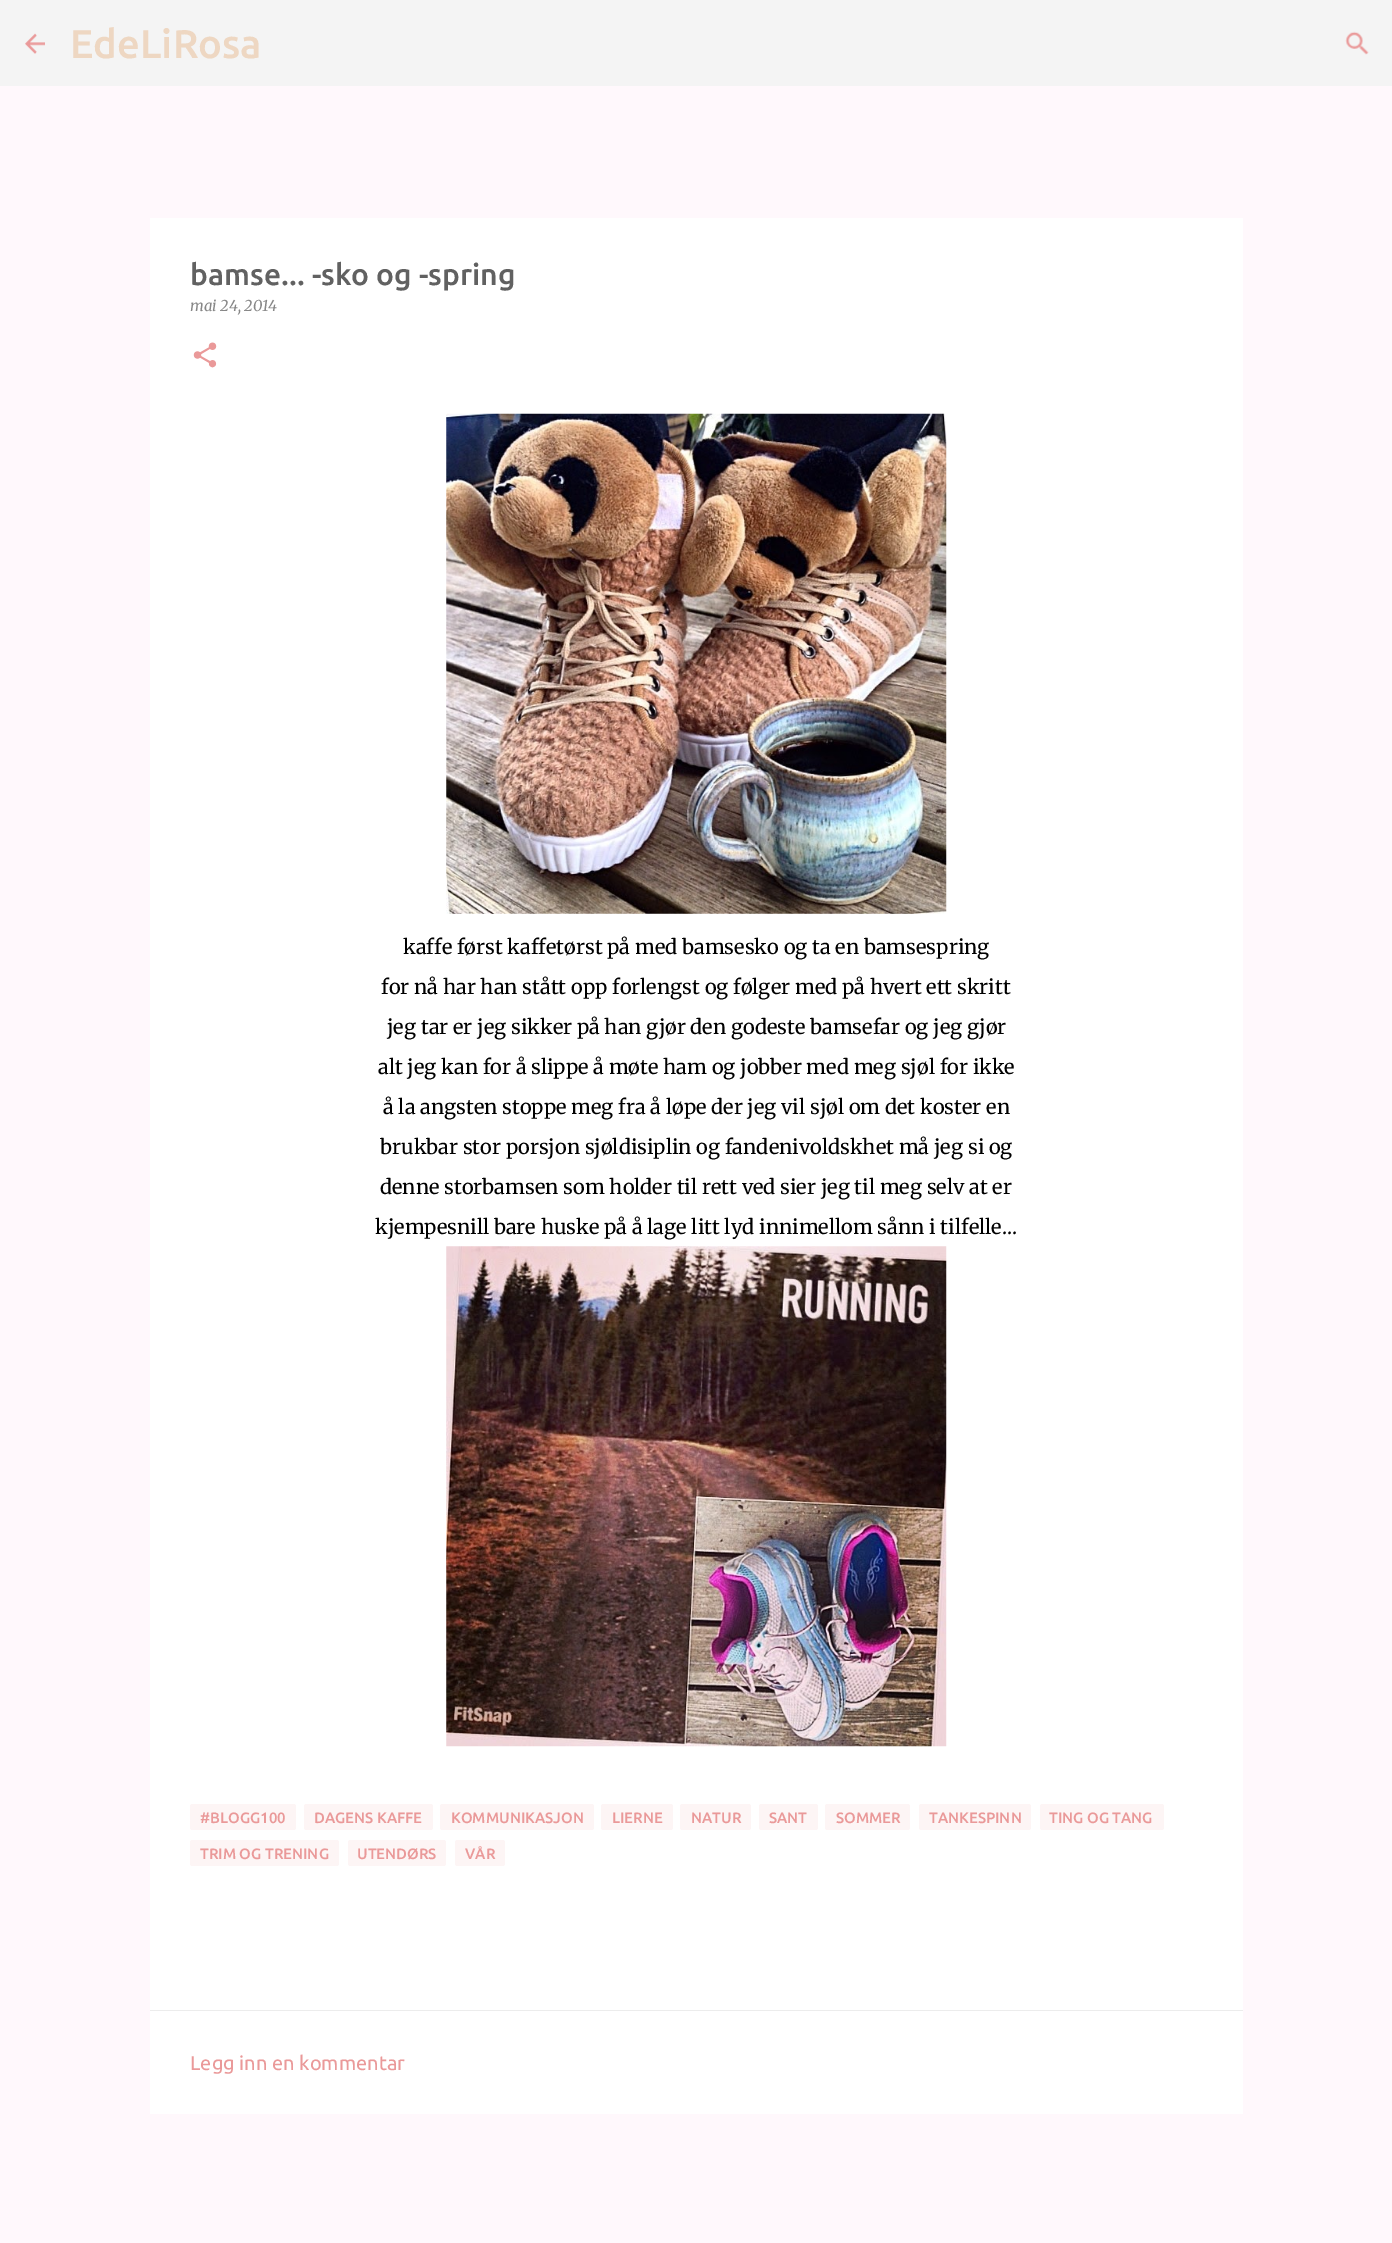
%!PS-Adobe-3.0
%%BoundingBox: 0 0 1392 2243
%%LanguageLevel: 3
%%Pages: 1
%%EndComments
%%BeginProlog
/setink { 3 { 255 div 3 1 roll } repeat setrgbcolor } def
/usefont { [ exch dup neg 0 0 3 -1 roll 0 0 ] selectfont } def
/drawtext { setink usefont moveto show } def
/fillbox { setink rectfill } def
/rrect { 5 dict begin { /r /h /w /y /x } { exch def } forall
  x r add y moveto x w add y 2 copy h add r arct x w add y h add x 1 index r arct
  x y h add x y r arct x y 2 copy exch w add exch r arct closepath end } def
/drawimage { 5 dict begin { /h /w /y /x /name } { exch def } forall
  gsave x y translate w h scale
  w h 8 [w 0 0 h 0 0] name (r) file false 3 colorimage grestore end } def
%%EndProlog
%%BeginSetup
<< /PageSize [1392 2243] >> setpagedevice
%%EndSetup
%%Page: 1 1
0 2243 translate 1 -1 scale
4 setmiterlimit
0 0 1392 2243 255 248 252 fillbox
0 0 1392 86 244 244 244 fillbox
(assets/img1.rgb) 25 33 20 21 drawimage
(EdeLiRosa) 70 58 /Ubuntu-Medium 40 238 215 194 drawtext
(assets/img2.rgb) 1345 31 24 24 drawimage
150 218 1093 1792 255 255 255 fillbox
(bamse... -sko og -spring) 190 285 /Ubuntu-Medium 30 97 97 97 drawtext
(mai 24, 2014) 190 311 /Merriweather-Italic 15 135 135 135 drawtext
(assets/img3.rgb) 193 342 24 26 drawimage
(assets/img4.rgb) 446 413 501 501 drawimage
(kaffe først kaffetørst på med bamsesko og ta en bamsespring) 403 954 /Merriweather-Light 20 0 0 0 drawtext
(for nå har han stått opp forlengst og følger med på hvert ett skritt) 381 994 /Merriweather-Light 20 0 0 0 drawtext
(jeg tar er jeg sikker på han gjør den godeste bamsefar og jeg gjør) 387 1034 /Merriweather-Light 20 0 0 0 drawtext
(alt jeg kan for å slippe å møte ham og jobber med meg sjøl for ikke) 378 1074 /Merriweather-Light 20 0 0 0 drawtext
(å la angsten stoppe meg fra å løpe der jeg vil sjøl om det koster en) 383 1114 /Merriweather-Light 20 0 0 0 drawtext
(brukbar stor porsjon sjøldisiplin og fandenivoldskhet må jeg si og) 380 1154 /Merriweather-Light 20 0 0 0 drawtext
(denne storbamsen som holder til rett ved sier jeg til meg selv at er) 380 1194 /Merriweather-Light 20 0 0 0 drawtext
(kjempesnill bare huske på å lage litt lyd innimellom sånn i tilfelle...) 375 1234 /Merriweather-Light 20 0 0 0 drawtext
(assets/img5.rgb) 446 1246 501 501 drawimage
253 245 245 setink
190 1804 106 26 2.5 rrect fill
(#BLOGG100) 200 1823 /Ubuntu-Medium 15 234 153 153 drawtext
253 245 245 setink
304 1804 129 26 2.5 rrect fill
(DAGENS KAFFE) 314 1823 /Ubuntu-Medium 15 234 153 153 drawtext
253 245 245 setink
440 1804 154 26 2.5 rrect fill
(KOMMUNIKASJON) 451 1823 /Ubuntu-Medium 15 234 153 153 drawtext
253 245 245 setink
601 1804 72 26 2.5 rrect fill
(LIERNE) 612 1823 /Ubuntu-Medium 15 234 153 153 drawtext
253 245 245 setink
680 1804 71 26 2.5 rrect fill
(NATUR) 691 1823 /Ubuntu-Medium 15 234 153 153 drawtext
253 245 245 setink
759 1804 59 26 2.5 rrect fill
(SANT) 769 1823 /Ubuntu-Medium 15 234 153 153 drawtext
253 245 245 setink
825 1804 85 26 2.5 rrect fill
(SOMMER) 836 1823 /Ubuntu-Medium 15 234 153 153 drawtext
253 245 245 setink
919 1804 112 26 2.5 rrect fill
(TANKESPINN) 929 1823 /Ubuntu-Medium 15 234 153 153 drawtext
253 245 245 setink
1040 1804 124 26 2.5 rrect fill
(TING OG TANG) 1049 1823 /Ubuntu-Medium 15 234 153 153 drawtext
253 245 245 setink
190 1840 149 26 2.5 rrect fill
(TRIM OG TRENING) 200 1859 /Ubuntu-Medium 15 234 153 153 drawtext
253 245 245 setink
348 1840 98 26 2.5 rrect fill
(UTENDØRS) 357 1859 /Ubuntu-Medium 15 234 153 153 drawtext
253 245 245 setink
455 1840 50 26 2.5 rrect fill
(VÅR) 465 1859 /Ubuntu-Medium 15 234 153 153 drawtext
150 2011 1093 103 255 255 255 fillbox
150 2010 1093 1 236 236 236 fillbox
(Legg inn en kommentar) 190 2070 /Ubuntu-Regular 20 234 153 153 drawtext
showpage
%%EOF
